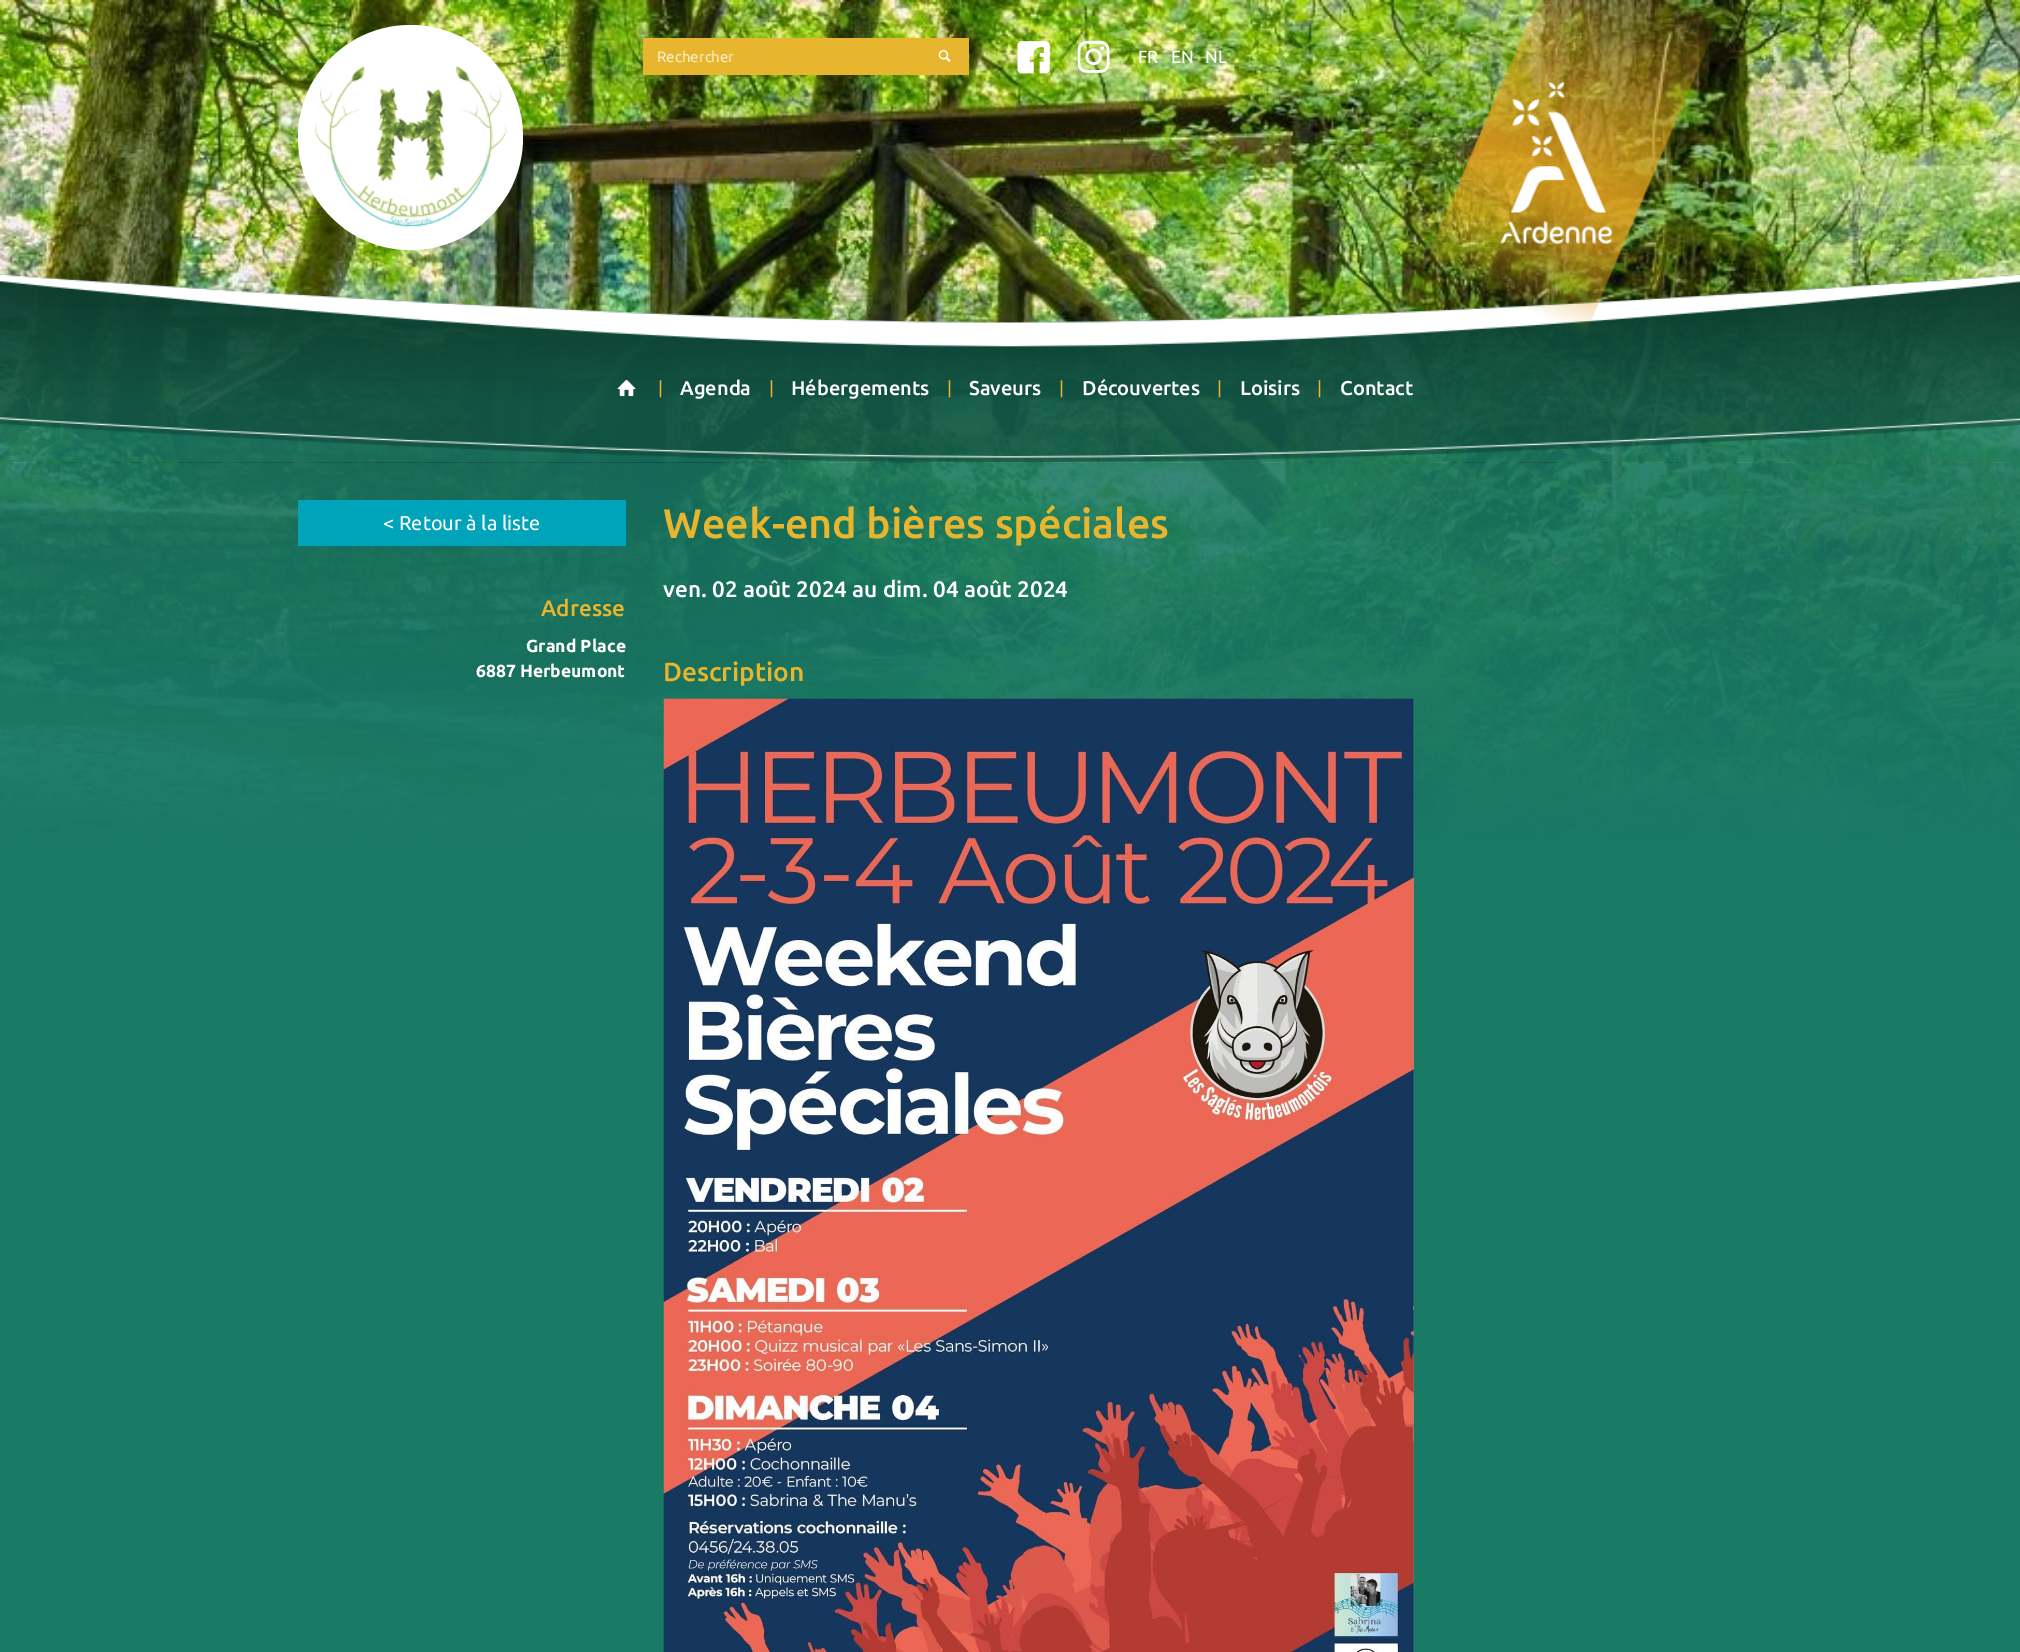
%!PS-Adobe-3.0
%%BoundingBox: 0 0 2020 1652
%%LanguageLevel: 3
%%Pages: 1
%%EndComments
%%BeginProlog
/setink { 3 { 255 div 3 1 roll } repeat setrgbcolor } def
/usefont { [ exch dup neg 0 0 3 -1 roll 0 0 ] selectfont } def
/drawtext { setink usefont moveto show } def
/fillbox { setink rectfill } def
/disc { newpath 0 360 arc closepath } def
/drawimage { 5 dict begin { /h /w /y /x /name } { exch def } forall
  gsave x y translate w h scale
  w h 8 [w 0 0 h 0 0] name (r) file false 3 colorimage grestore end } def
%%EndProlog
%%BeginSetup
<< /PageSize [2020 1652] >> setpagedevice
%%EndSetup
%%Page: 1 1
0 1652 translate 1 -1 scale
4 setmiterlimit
0 0 2020 1652 25 122 102 fillbox
(assets/img1.rgb) 0 0 2020 842 drawimage
(assets/img2.rgb) 0 273 2020 190 drawimage
255 255 255 setink
410.5 137.5 112.5 disc fill
(assets/img3.rgb) 315 66 192 161 drawimage
643 38 326 37 231 181 46 fillbox
(assets/img4.rgb) 938 50 13 12 drawimage
(Rechercher) 657 62 /Ubuntu-Regular 15 249 238 206 drawtext
(assets/img5.rgb) 1017 41 33 33 drawimage
(assets/img6.rgb) 1077 40 33 33 drawimage
(FR) 1138 63 /Ubuntu-Regular 17.5 255 255 255 drawtext
(EN) 1171 63 /Ubuntu-Regular 17.5 255 255 255 drawtext
(NL) 1205 63 /Ubuntu-Regular 17.5 255 255 255 drawtext
(assets/img7.rgb) 1426 0 296 333 drawimage
(assets/img8.rgb) 617 379 19 18 drawimage
(|) 658 394 /Ubuntu-Regular 17.5 231 181 46 drawtext
(Agenda) 680 395 /Ubuntu-Medium 20 255 255 255 drawtext
(|) 769 394 /Ubuntu-Regular 17.5 231 181 46 drawtext
(Hébergements) 791 395 /Ubuntu-Medium 20 255 255 255 drawtext
(|) 947 394 /Ubuntu-Regular 17.5 231 181 46 drawtext
(Saveurs) 969 395 /Ubuntu-Medium 20 255 255 255 drawtext
(|) 1059 394 /Ubuntu-Regular 17.5 231 181 46 drawtext
(Découvertes) 1082 395 /Ubuntu-Medium 20 255 255 255 drawtext
(|) 1217 394 /Ubuntu-Regular 17.5 231 181 46 drawtext
(Loisirs) 1240 395 /Ubuntu-Medium 20 255 255 255 drawtext
(|) 1317 394 /Ubuntu-Regular 17.5 231 181 46 drawtext
(Contact) 1340 395 /Ubuntu-Medium 20 255 255 255 drawtext
(assets/img9.rgb) 0 462 2020 476 drawimage
298 500 328 46 0 164 186 fillbox
(< Retour à la liste) 383 530 /Ubuntu-Regular 20 255 255 255 drawtext
(Adresse) 541 616 /Ubuntu-Medium 22.5 231 181 46 drawtext
(Grand Place) 526 652 /Ubuntu-Bold 17.5 255 255 255 drawtext
(6887 Herbeumont) 476 677 /Ubuntu-Bold 17.5 255 255 255 drawtext
(Week-end bières spéciales) 663 538 /Ubuntu-Medium 41.25 231 181 46 drawtext
(ven. 02 août 2024 au dim. 04 août 2024) 663 597 /Ubuntu-Medium 22.5 255 255 255 drawtext
(Description) 663 681 /Ubuntu-Medium 26.25 231 181 46 drawtext
(assets/img10.rgb) 663 698 751 954 drawimage
showpage
%%EOF
